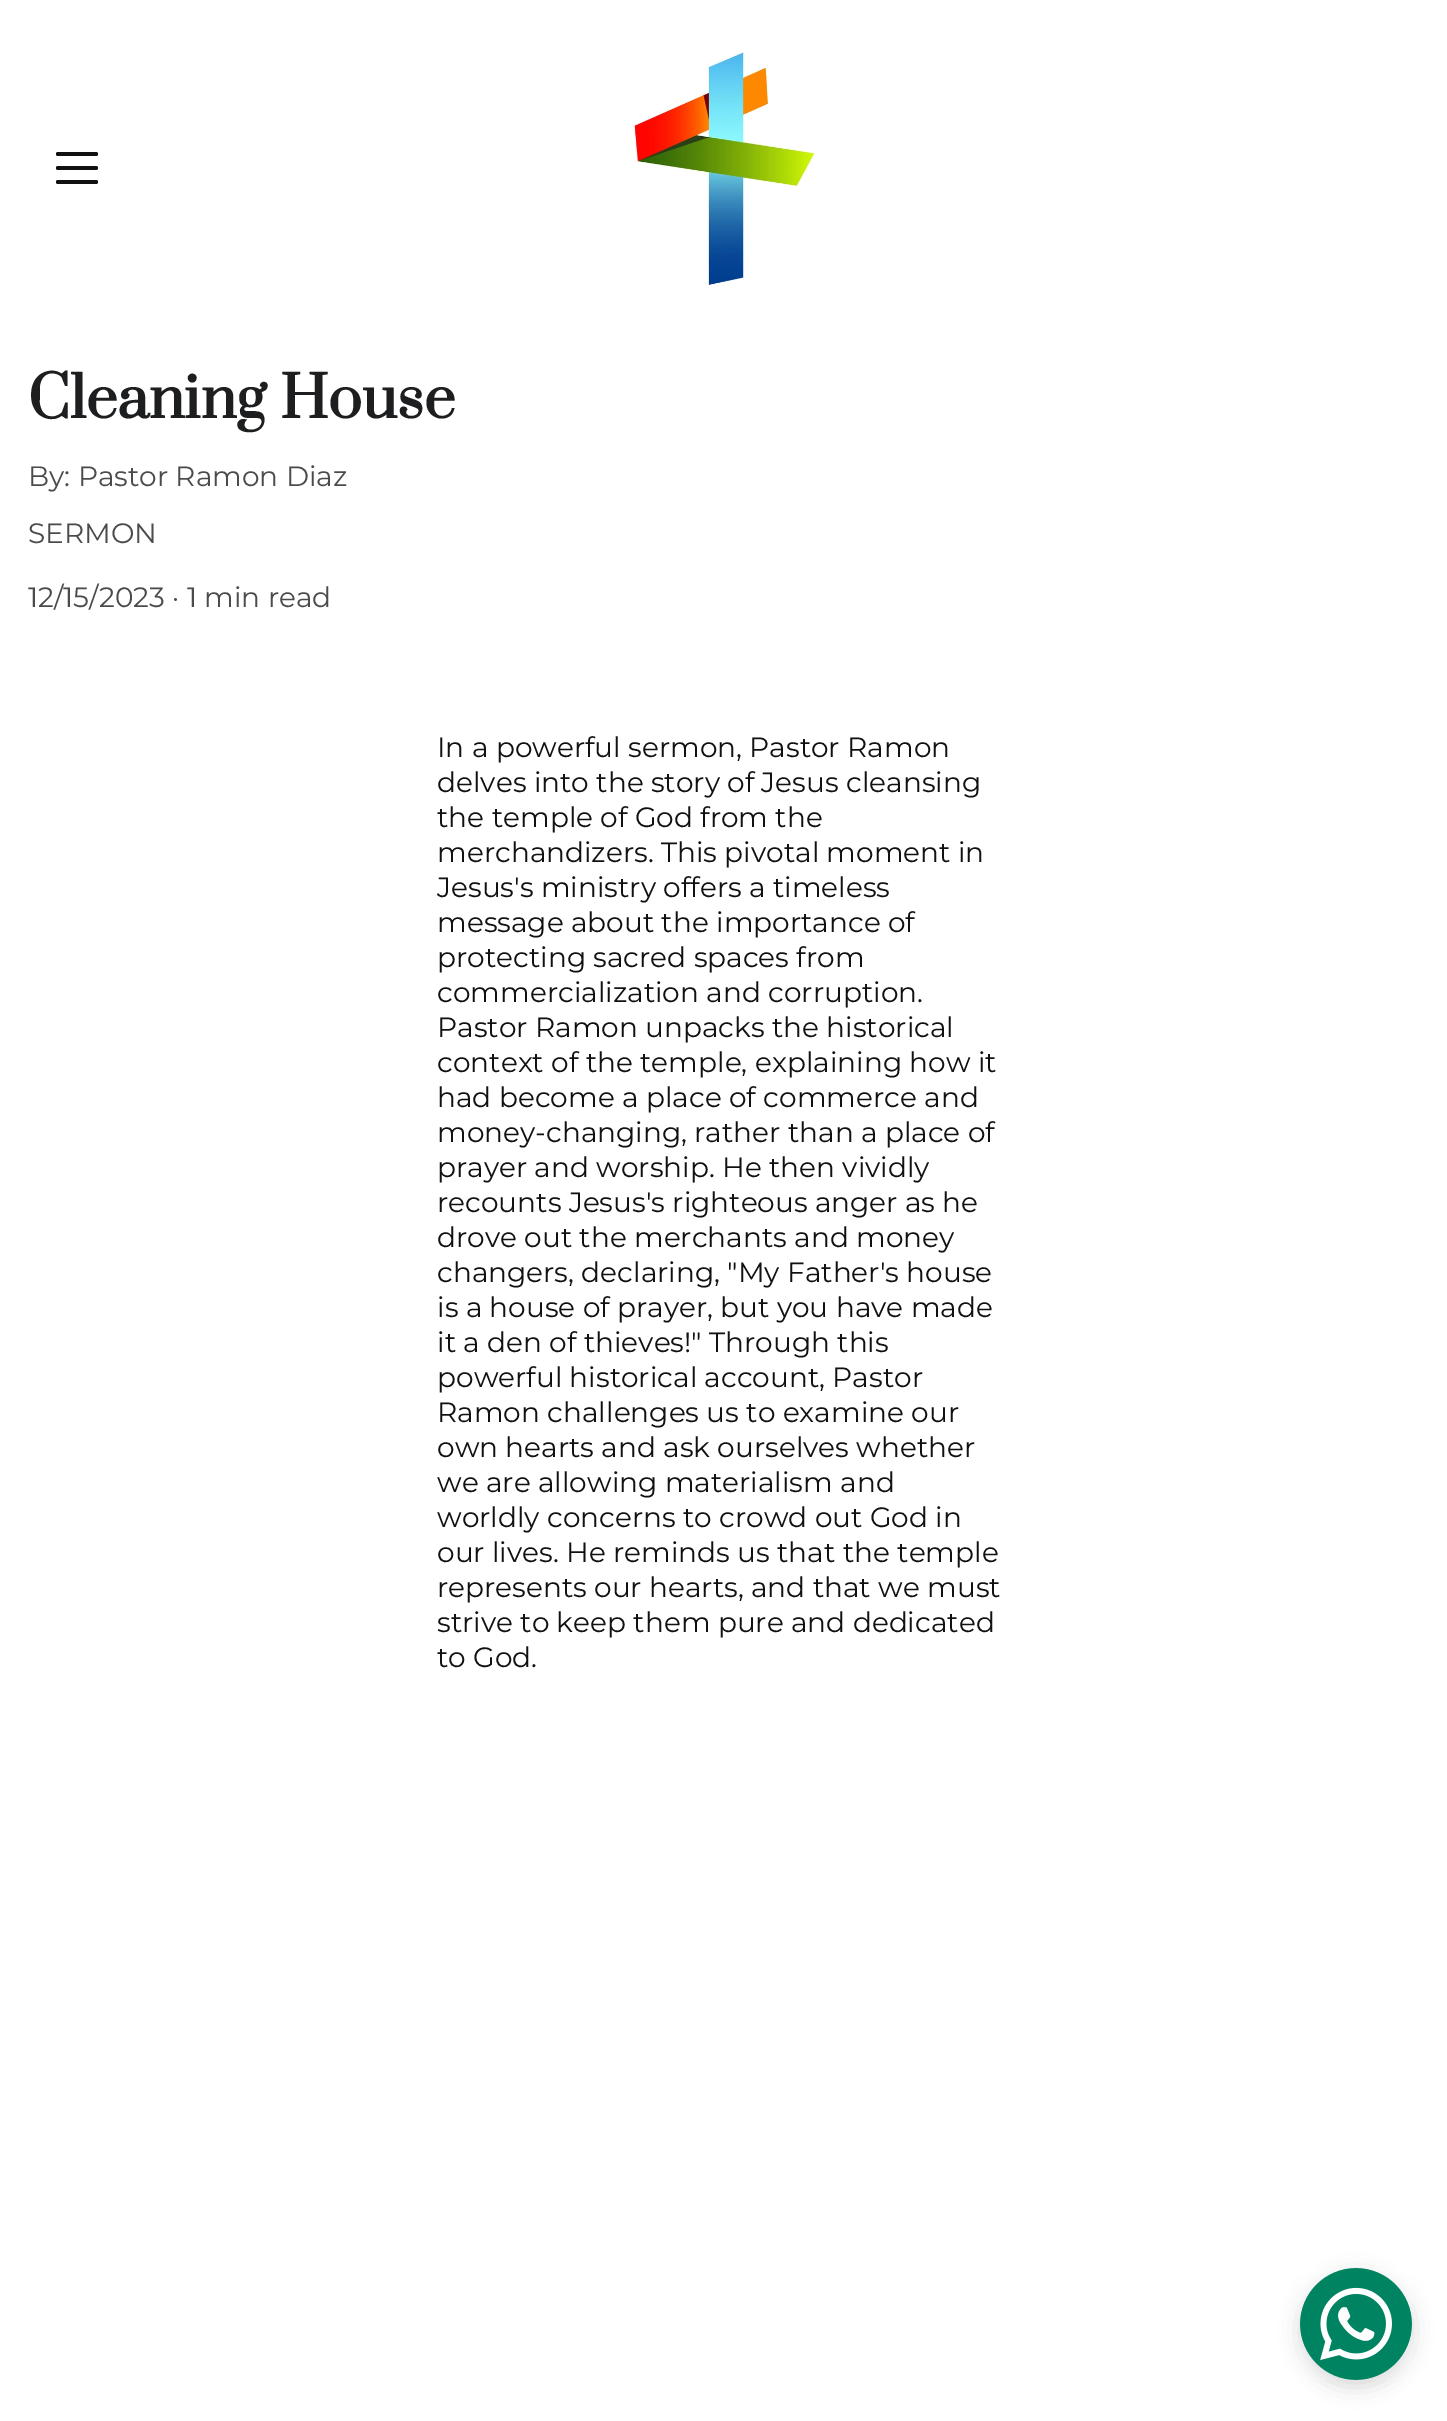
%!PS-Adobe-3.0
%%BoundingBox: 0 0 1447 2421
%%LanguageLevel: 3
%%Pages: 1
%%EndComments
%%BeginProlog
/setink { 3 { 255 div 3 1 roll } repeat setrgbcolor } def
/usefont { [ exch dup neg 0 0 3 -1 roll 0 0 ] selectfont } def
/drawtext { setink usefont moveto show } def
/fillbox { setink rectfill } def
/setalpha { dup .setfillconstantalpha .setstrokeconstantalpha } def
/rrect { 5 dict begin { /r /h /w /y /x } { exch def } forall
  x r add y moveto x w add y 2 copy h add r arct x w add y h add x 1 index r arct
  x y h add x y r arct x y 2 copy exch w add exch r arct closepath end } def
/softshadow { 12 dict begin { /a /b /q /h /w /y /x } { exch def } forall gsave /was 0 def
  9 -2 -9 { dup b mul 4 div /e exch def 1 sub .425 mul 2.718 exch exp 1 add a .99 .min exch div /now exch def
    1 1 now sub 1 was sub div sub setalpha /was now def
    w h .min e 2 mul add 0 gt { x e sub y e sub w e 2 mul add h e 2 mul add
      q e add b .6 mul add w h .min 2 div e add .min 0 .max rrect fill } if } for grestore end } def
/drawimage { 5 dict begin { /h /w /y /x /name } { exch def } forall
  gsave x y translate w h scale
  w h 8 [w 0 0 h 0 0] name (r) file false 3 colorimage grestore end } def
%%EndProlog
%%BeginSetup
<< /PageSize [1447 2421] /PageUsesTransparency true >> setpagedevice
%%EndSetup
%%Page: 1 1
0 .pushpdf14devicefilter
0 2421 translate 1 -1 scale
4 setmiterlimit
0 0 1447 2421 255 255 255 fillbox
17 17 17 setink
56 152 42 4 2 rrect fill
56 166 42 4 2 rrect fill
56 180 42 4 2 rrect fill
(assets/img1.rgb) 633 52 182 233 drawimage
(Cleaning House) 28 418 /Prata-Bold 56 29 30 32 drawtext
(By: Pastor Ramon Diaz) 28 486 /Montserrat-Thin 28 74 75 77 drawtext
(SERMON) 28 543 /Montserrat-Thin 28 74 75 77 drawtext
(12/15/2023 · 1 min read) 28 607 /Montserrat-Thin 28 74 75 77 drawtext
(In a powerful sermon, Pastor Ramon) 437 757 /Montserrat-Thin 28 17 17 17 drawtext
(delves into the story of Jesus cleansing) 437 792 /Montserrat-Thin 28 17 17 17 drawtext
(the temple of God from the) 437 827 /Montserrat-Thin 28 17 17 17 drawtext
(merchandizers. This pivotal moment in) 437 862 /Montserrat-Thin 28 17 17 17 drawtext
(Jesus's ministry offers a timeless) 437 897 /Montserrat-Thin 28 17 17 17 drawtext
(message about the importance of) 437 932 /Montserrat-Thin 28 17 17 17 drawtext
(protecting sacred spaces from) 437 967 /Montserrat-Thin 28 17 17 17 drawtext
(commercialization and corruption.) 437 1002 /Montserrat-Thin 28 17 17 17 drawtext
(Pastor Ramon unpacks the historical) 437 1037 /Montserrat-Thin 28 17 17 17 drawtext
(context of the temple, explaining how it) 437 1072 /Montserrat-Thin 28 17 17 17 drawtext
(had become a place of commerce and) 437 1107 /Montserrat-Thin 28 17 17 17 drawtext
(money-changing, rather than a place of) 437 1142 /Montserrat-Thin 28 17 17 17 drawtext
(prayer and worship. He then vividly) 437 1177 /Montserrat-Thin 28 17 17 17 drawtext
(recounts Jesus's righteous anger as he) 437 1212 /Montserrat-Thin 28 17 17 17 drawtext
(drove out the merchants and money) 437 1247 /Montserrat-Thin 28 17 17 17 drawtext
(changers, declaring, "My Father's house) 437 1282 /Montserrat-Thin 28 17 17 17 drawtext
(is a house of prayer, but you have made) 437 1317 /Montserrat-Thin 28 17 17 17 drawtext
(it a den of thieves!" Through this) 437 1352 /Montserrat-Thin 28 17 17 17 drawtext
(powerful historical account, Pastor) 437 1387 /Montserrat-Thin 28 17 17 17 drawtext
(Ramon challenges us to examine our) 437 1422 /Montserrat-Thin 28 17 17 17 drawtext
(own hearts and ask ourselves whether) 437 1457 /Montserrat-Thin 28 17 17 17 drawtext
(we are allowing materialism and) 437 1492 /Montserrat-Thin 28 17 17 17 drawtext
(worldly concerns to crowd out God in) 437 1527 /Montserrat-Thin 28 17 17 17 drawtext
(our lives. He reminds us that the temple) 437 1562 /Montserrat-Thin 28 17 17 17 drawtext
(represents our hearts, and that we must) 437 1597 /Montserrat-Thin 28 17 17 17 drawtext
(strive to keep them pure and dedicated) 437 1632 /Montserrat-Thin 28 17 17 17 drawtext
(to God.) 437 1667 /Montserrat-Thin 28 17 17 17 drawtext
0 0 0 setink
1300 2275 112 112 56 10.5 0.15 softshadow
(assets/img2.rgb) 1300 2268 112 112 drawimage
.poppdf14devicefilter showpage
%%EOF
